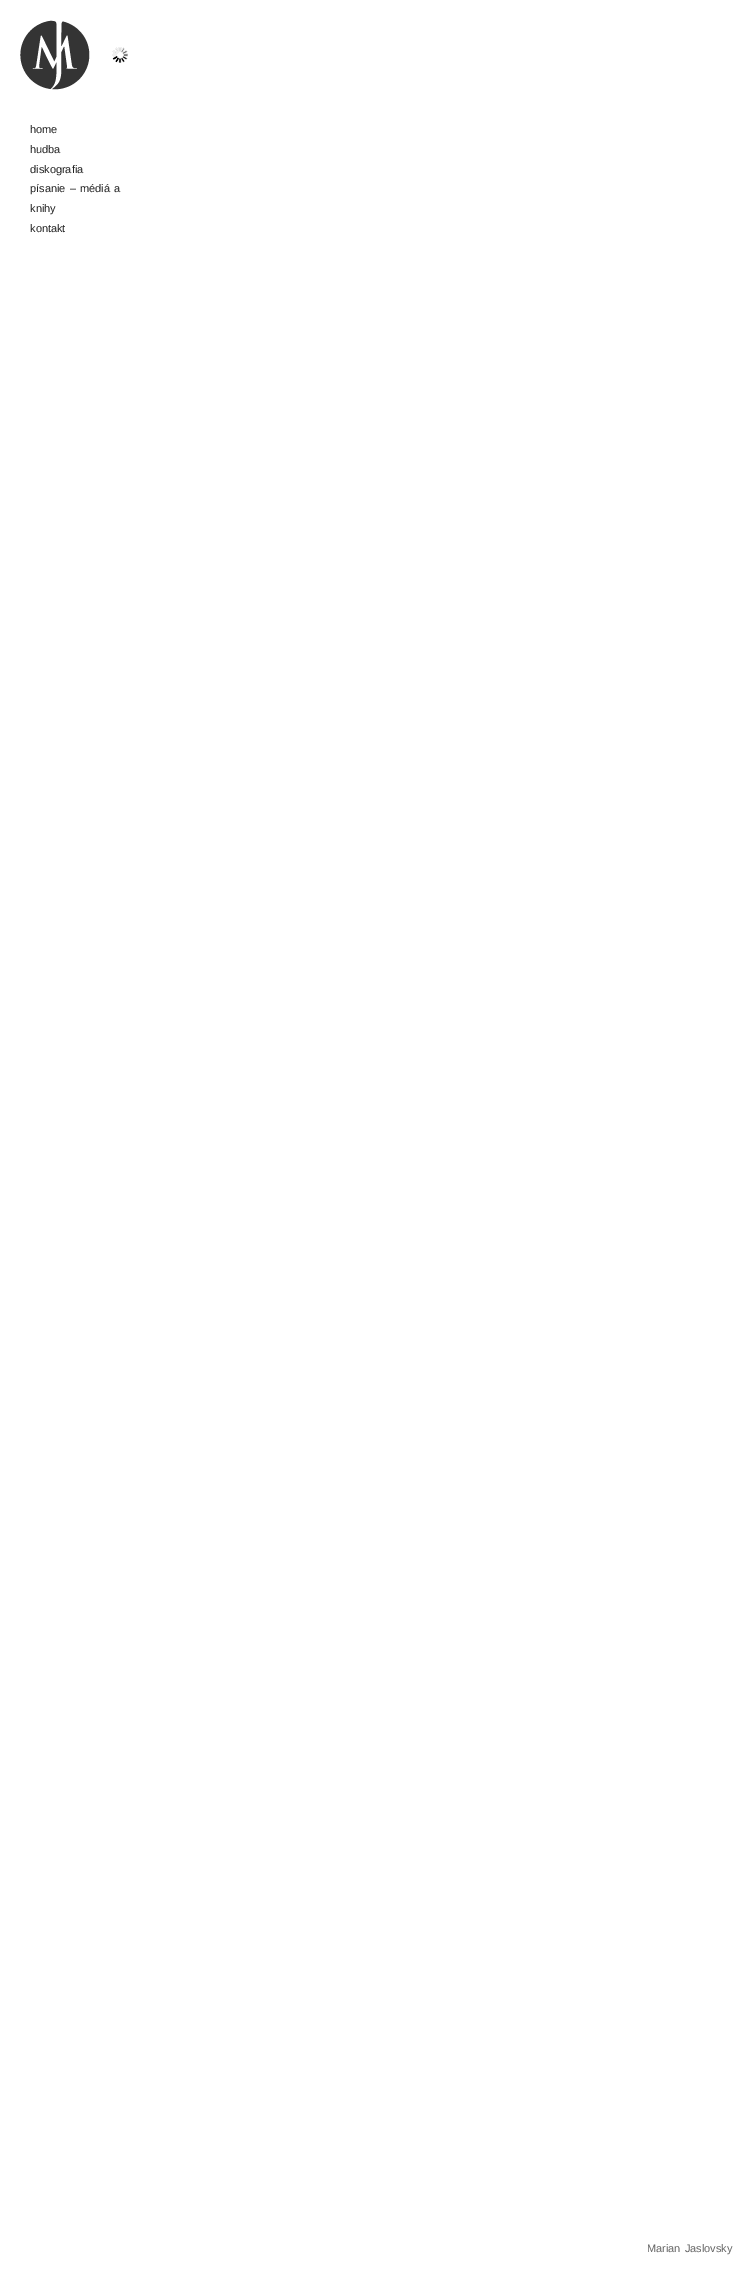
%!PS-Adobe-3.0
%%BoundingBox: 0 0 752 2272
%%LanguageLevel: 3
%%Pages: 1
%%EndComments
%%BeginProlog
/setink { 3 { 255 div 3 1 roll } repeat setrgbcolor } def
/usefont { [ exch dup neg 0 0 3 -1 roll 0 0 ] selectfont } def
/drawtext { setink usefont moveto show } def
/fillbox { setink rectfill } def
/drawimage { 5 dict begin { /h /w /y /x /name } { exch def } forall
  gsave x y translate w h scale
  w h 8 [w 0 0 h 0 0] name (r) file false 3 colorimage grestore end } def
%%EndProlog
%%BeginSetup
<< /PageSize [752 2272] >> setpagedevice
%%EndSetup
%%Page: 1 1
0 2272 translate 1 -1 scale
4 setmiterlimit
0 0 752 2272 255 255 255 fillbox
(assets/img1.rgb) 20 20 70 70 drawimage
(assets/img2.rgb) 112 47 16 16 drawimage
(home) 30 133 /LiberationSans-Regular 11 34 34 34 drawtext
(hudba) 30 153 /LiberationSans-Regular 11 34 34 34 drawtext
(diskografia) 30 173 /LiberationSans-Regular 11 34 34 34 drawtext
30 192 moveto 1 0 32 (písanie – médiá a) widthshow
(knihy) 30 212 /LiberationSans-Regular 11 34 34 34 drawtext
(kontakt) 30 232 /LiberationSans-Regular 11 34 34 34 drawtext
102 102 102 setink
647 2252 moveto 1 0 32 (Marian Jaslovsky) widthshow
showpage
%%EOF
